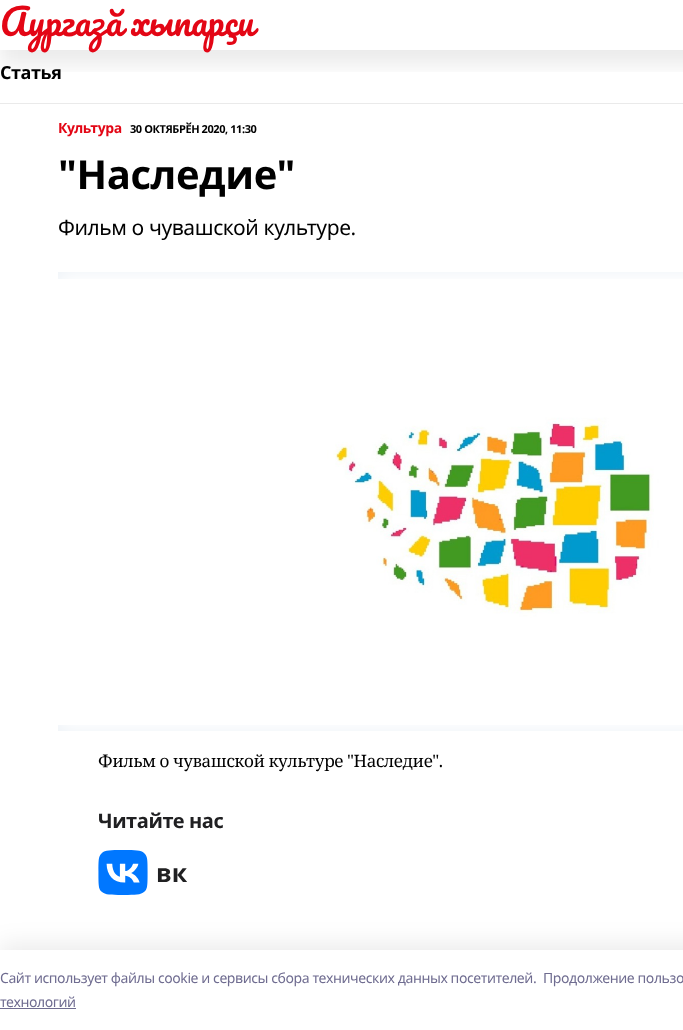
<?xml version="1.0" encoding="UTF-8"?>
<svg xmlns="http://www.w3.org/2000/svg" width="683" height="1030">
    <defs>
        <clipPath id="clip1"><rect x="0" y="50" width="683" height="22"/></clipPath>
        <filter id="blur1" x="-50%" y="-200%" width="200%" height="500%"><feGaussianBlur stdDeviation="10"/></filter>
        <filter id="blur2" x="-50%" y="-200%" width="200%" height="500%"><feGaussianBlur stdDeviation="11.5"/></filter>
    </defs>
    <rect width="100%" height="100%" fill="#FFFFFF"/>
    <g clip-path="url(#clip1)">
        <rect x="0" y="15" width="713" height="50" fill="#000000" fill-opacity="0.08" filter="url(#blur1)"/>
    </g>
    <text x="0" y="36" word-spacing="-1" font-family="Pacifico" font-size="36" letter-spacing="-0.42" fill="#E30615">Аургазă хыпарçи</text>
    <rect x="0" y="103" width="683" height="1" fill="#EAEAEA"/>
    <text x="0" y="79" font-family="Noto Sans" font-size="18" font-weight="700" letter-spacing="-0.42" fill="#000000">Статья</text>
    <text x="58" y="133" font-family="Noto Sans" font-size="14" font-weight="700" letter-spacing="-0.42" fill="#E30615">Культура</text>
    <text x="130" y="133" font-family="Noto Sans" font-size="11" font-weight="700" letter-spacing="-0.42" fill="#000000">30 ОКТЯБРӖН 2020, 11:30</text>
    <text x="58" y="189" font-family="Noto Sans" font-size="40" font-weight="700" letter-spacing="-0.42" fill="#000000">"Наследие"</text>
    <text x="58" y="235" font-family="Noto Sans" font-size="21" letter-spacing="-0.42" fill="#000000">Фильм о чувашской культуре.</text>
    <rect x="58" y="272" width="625" height="459" fill="#EDF2F7"/>
    <image x="58" y="272" width="625" height="459" href="img_01.png"/>
    <image x="58" y="279" width="625" height="446" href="img_02.png"/>
    <text x="98" y="767" font-family="Noto Serif" font-size="17" letter-spacing="-0.42" fill="#000000">Фильм о чувашской культуре "Наследие".</text>
    <text x="98" y="828" font-family="Noto Sans" font-size="20" font-weight="700" letter-spacing="-0.42" fill="#202022">Читайте нас</text>
    <image x="98" y="850" width="89" height="45" href="img_03.png"/>
    <rect x="0" y="944" width="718" height="80" fill="#14142B" fill-opacity="0.08" filter="url(#blur2)"/>
    <rect x="0" y="950" width="683" height="80" fill="#FFFFFF"/>
    <text x="0" y="983" font-family="Noto Sans" font-size="14" letter-spacing="-0.42" fill="#6F6C90">Cайт использует файлы cookie и сервисы сбора технических данных посетителей.</text>
    <text x="543" y="983" font-family="Noto Sans" font-size="14" letter-spacing="-0.42" fill="#6F6C90">Продолжение пользо</text>
    <text x="0" y="1007" font-family="Noto Sans" font-size="14" letter-spacing="-0.42" fill="#6F6C90">технологий</text>
    <rect x="0" y="1008" width="76" height="1" fill="#6F6C90"/>
</svg>
